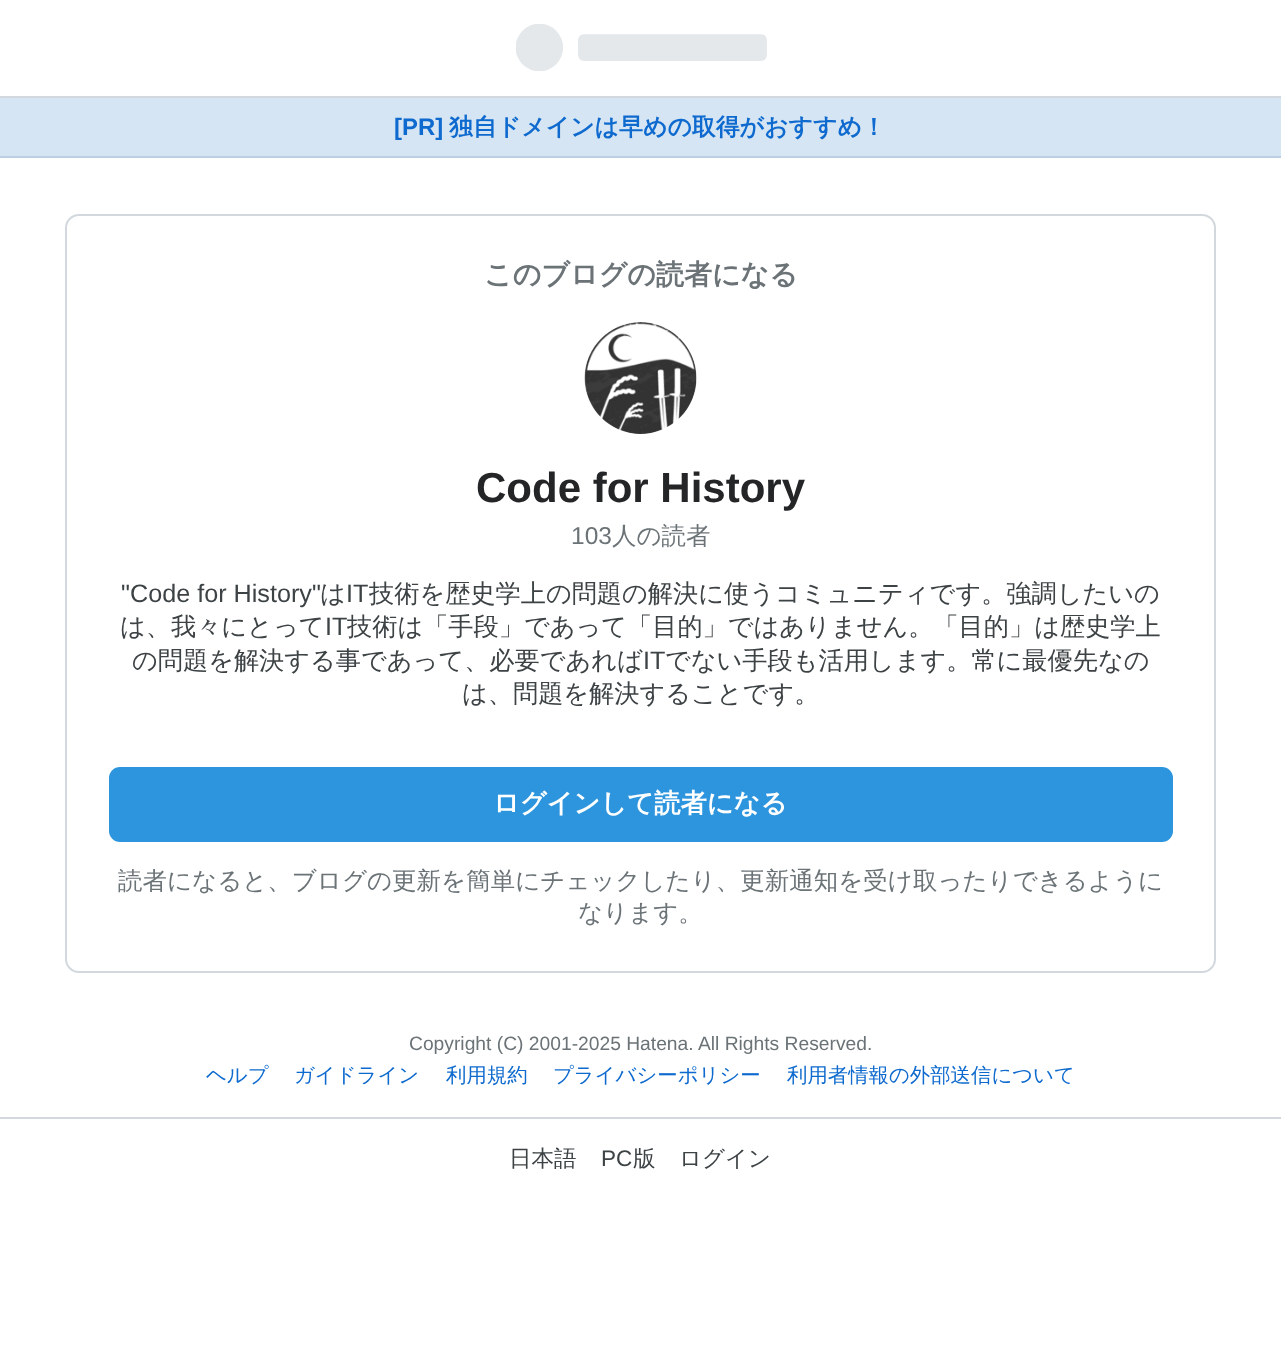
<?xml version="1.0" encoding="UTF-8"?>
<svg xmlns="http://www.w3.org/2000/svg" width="1281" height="1366">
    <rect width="100%" height="100%" fill="#FFFFFF"/>
    <rect x="0" y="96" width="1281" height="2" fill="#D2D8DD"/>
    <image x="516" y="24" width="251" height="47" href="img_01.png"/>
    <rect x="0" y="98" width="1281" height="58" fill="#D6E5F3"/>
    <rect x="0" y="156" width="1281" height="2" fill="#BBCEE3"/>
    <text x="394" y="135" font-family="Liberation Sans" font-size="23.9" font-weight="700" fill="#0E6ACE">[PR]</text>
    <text x="449" y="135" font-family="WenQuanYi Zen Hei" font-size="23.9" font-weight="700" fill="#0E6ACE">独自ドメインは早めの取得がおすすめ！</text>
    <rect x="66" y="215" width="1149" height="757" rx="13" fill="none" stroke="#D2D8DD" stroke-width="2"/>
    <text x="484" y="284" font-family="WenQuanYi Zen Hei" font-size="28" font-weight="700" fill="#6B7377">このブログの読者になる</text>
    <image x="584" y="322" width="113" height="112" href="img_02.png"/>
    <text x="476" y="502" font-family="Liberation Sans" font-size="42" font-weight="700" fill="#242527">Code for History</text>
    <text x="571" y="544" font-family="Liberation Sans" font-size="24.5" fill="#6B7377">103</text>
    <text x="612" y="544" font-family="WenQuanYi Zen Hei" font-size="24.5" font-weight="500" fill="#6B7377">人の読者</text>
    <text x="121" y="602" font-family="Liberation Sans" font-size="25.2" fill="#3D4245">"Code for History"</text>
    <text x="320" y="602" font-family="WenQuanYi Zen Hei" font-size="25.2" font-weight="500" fill="#3D4245">は</text>
    <text x="346" y="602" font-family="Liberation Sans" font-size="25.2" fill="#3D4245">IT</text>
    <text x="369" y="602" font-family="WenQuanYi Zen Hei" font-size="25.2" font-weight="500" fill="#3D4245">技術を歴史学上の問題の解決に使うコミュニティです。強調したいの</text>
    <text x="120" y="635" font-family="WenQuanYi Zen Hei" font-size="25.2" font-weight="500" fill="#3D4245">は、我々にとって</text>
    <text x="325" y="635" font-family="Liberation Sans" font-size="25.2" fill="#3D4245">IT</text>
    <text x="347" y="635" font-family="WenQuanYi Zen Hei" font-size="25.2" font-weight="500" fill="#3D4245">技術は「手段」であって「目的」ではありません。「目的」は歴史学上</text>
    <text x="132" y="669" font-family="WenQuanYi Zen Hei" font-size="25.2" font-weight="500" fill="#3D4245">の問題を解決する事であって、必要であれば</text>
    <text x="643" y="669" font-family="Liberation Sans" font-size="25.2" fill="#3D4245">IT</text>
    <text x="665" y="669" font-family="WenQuanYi Zen Hei" font-size="25.2" font-weight="500" fill="#3D4245">でない手段も活用します。常に最優先なの</text>
    <text x="462" y="702" font-family="WenQuanYi Zen Hei" font-size="25.2" font-weight="500" fill="#3D4245">は、問題を解決することです。</text>
    <rect x="109" y="767" width="1064" height="75" rx="11" fill="#2D95DE"/>
    <text x="493" y="812" font-family="WenQuanYi Zen Hei" font-size="26.25" font-weight="700" fill="#FFFFFF">ログインして読者になる</text>
    <text x="118" y="889" font-family="WenQuanYi Zen Hei" font-size="24.5" font-weight="500" fill="#6B7377">読者になると、ブログの更新を簡単にチェックしたり、更新通知を受け取ったりできるように</text>
    <text x="578" y="921" font-family="WenQuanYi Zen Hei" font-size="24.5" font-weight="500" fill="#6B7377">なります。</text>
    <text x="409" y="1050" font-family="Liberation Sans" font-size="19.25" fill="#6B7377">Copyright (C) 2001-2025 Hatena. All Rights Reserved.</text>
    <text x="206" y="1082" font-family="WenQuanYi Zen Hei" font-size="20.4" font-weight="500" fill="#0E6ACE">ヘルプ</text>
    <text x="294" y="1082" font-family="WenQuanYi Zen Hei" font-size="20.4" font-weight="500" fill="#0E6ACE">ガイドライン</text>
    <text x="446" y="1082" font-family="WenQuanYi Zen Hei" font-size="20.4" font-weight="500" fill="#0E6ACE">利用規約</text>
    <text x="553" y="1082" font-family="WenQuanYi Zen Hei" font-size="20.4" font-weight="500" fill="#0E6ACE">プライバシーポリシー</text>
    <text x="787" y="1082" font-family="WenQuanYi Zen Hei" font-size="20.4" font-weight="500" fill="#0E6ACE">利用者情報の外部送信について</text>
    <rect x="0" y="1117" width="1281" height="2" fill="#D2D8DD"/>
    <text x="509" y="1166" font-family="WenQuanYi Zen Hei" font-size="22.5" font-weight="500" fill="#3D4245">日本語</text>
    <text x="601" y="1166" font-family="Liberation Sans" font-size="22.5" fill="#3D4245">PC</text>
    <text x="633" y="1166" font-family="WenQuanYi Zen Hei" font-size="22.5" font-weight="500" fill="#3D4245">版</text>
    <text x="679" y="1166" font-family="WenQuanYi Zen Hei" font-size="22.5" font-weight="500" fill="#3D4245">ログイン</text>
</svg>
